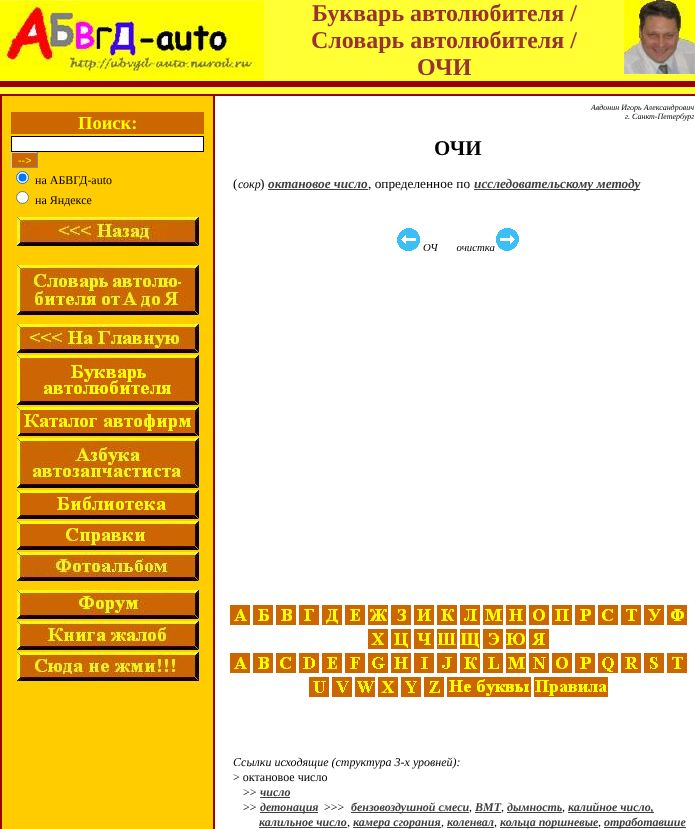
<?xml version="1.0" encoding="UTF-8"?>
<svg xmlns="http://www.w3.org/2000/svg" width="695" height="829">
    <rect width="100%" height="100%" fill="#FFFF33"/>
    <image x="0" y="1" width="264" height="79" href="img_01.png"/>
    <text x="312" y="21" font-family="Liberation Serif" font-size="24" font-weight="700" fill="#993333">Букварь автолюбителя /</text>
    <text x="311" y="48" font-family="Liberation Serif" font-size="24" font-weight="700" fill="#993333">Словарь автолюбителя /</text>
    <text x="417" y="75" font-family="Liberation Serif" font-size="24" font-weight="700" fill="#993333">ОЧИ</text>
    <image x="624" y="0" width="71" height="74" href="img_02.png"/>
    <rect x="0" y="81" width="695" height="6" fill="#990000"/>
    <rect x="0" y="94" width="695" height="735" fill="#990000"/>
    <rect x="2" y="96" width="211" height="733" fill="#FFCC00"/>
    <rect x="11" y="112" width="193" height="22" fill="#CC6600"/>
    <text x="78" y="129" font-family="Liberation Serif" font-size="18.5" font-weight="700" fill="#FFFF00">Поиск:</text>
    <rect x="11.5" y="136.5" width="192" height="15" fill="#FFFFFF" stroke="#000000"/>
    <rect x="12" y="153" width="25" height="14" fill="#CC6600"/>
    <rect x="11" y="152" width="27" height="1" fill="#CCCCCC"/>
    <rect x="37" y="152" width="1" height="16" fill="#888888"/>
    <rect x="11" y="167" width="27" height="1" fill="#888888"/>
    <rect x="11" y="152" width="1" height="16" fill="#CCCCCC"/>
    <text x="18" y="164" font-family="Liberation Sans" font-size="10.75" fill="#FFFF00">--&gt;</text>
    <circle cx="22.5" cy="177.5" r="6" fill="#FFFFFF" stroke="#0075FF"/>
    <circle cx="22.5" cy="177.5" r="4" fill="#0075FF"/>
    <text x="35" y="184" font-family="Liberation Serif" font-size="12" fill="#000000">на АБВГД-auto</text>
    <circle cx="22.5" cy="197.5" r="6" fill="#FFFFFF" stroke="#767676"/>
    <text x="35" y="204" font-family="Liberation Serif" font-size="12" fill="#000000">на Яндексе</text>
    <image x="17" y="217" width="182" height="29" href="img_03.png"/>
    <image x="17" y="265" width="182" height="50" href="img_04.png"/>
    <image x="17" y="324" width="182" height="29" href="img_05.png"/>
    <image x="17" y="355" width="182" height="50" href="img_06.png"/>
    <image x="17" y="407" width="182" height="29" href="img_07.png"/>
    <image x="17" y="438" width="182" height="50" href="img_08.png"/>
    <image x="17" y="490" width="182" height="29" href="img_09.png"/>
    <image x="17" y="521" width="182" height="29" href="img_10.png"/>
    <image x="17" y="552" width="182" height="29" href="img_11.png"/>
    <image x="17" y="590" width="182" height="29" href="img_12.png"/>
    <image x="17" y="621" width="182" height="29" href="img_13.png"/>
    <image x="17" y="652" width="182" height="29" href="img_14.png"/>
    <rect x="215" y="96" width="480" height="733" fill="#FFFFFF"/>
    <text x="591" y="110" font-family="Liberation Serif" font-size="8" font-style="italic" fill="#000000">Авдонин Игорь Александрович</text>
    <text x="625" y="119" font-family="Liberation Serif" font-size="8" font-style="italic" fill="#000000">г. Санкт-Петербург</text>
    <text x="434" y="155" font-family="Liberation Serif" font-size="21" font-weight="700" fill="#000000">ОЧИ</text>
    <text x="233" y="188" font-family="Liberation Serif" font-size="13.3" fill="#000000">(</text>
    <text x="238" y="188" font-family="Liberation Serif" font-size="12" font-style="italic" fill="#000000">сокр</text>
    <text x="260" y="188" font-family="Liberation Serif" font-size="13.3" fill="#000000">)</text>
    <text x="268" y="188" font-family="Liberation Serif" font-size="13.3" font-weight="700" font-style="italic" fill="#404040">октановое число</text>
    <rect x="268" y="189" width="100" height="1" fill="#404040"/>
    <text x="368" y="188" font-family="Liberation Serif" font-size="13.3" fill="#000000">, определенное по</text>
    <rect x="474" y="189" width="166" height="1" fill="#404040"/>
    <text x="474" y="188" font-family="Liberation Serif" font-size="13.3" font-weight="700" font-style="italic" fill="#404040">исследовательскому методу</text>
    <image x="397" y="228" width="23" height="23" href="img_15.png"/>
    <text x="423" y="251" font-family="Liberation Serif" font-size="10.75" font-style="italic" fill="#000000" xml:space="preserve">ОЧ       очистка</text>
    <image x="496" y="228" width="23" height="23" href="img_16.png"/>
    <image x="230" y="605" width="20" height="20" href="img_17.png"/>
    <image x="253" y="605" width="20" height="20" href="img_18.png"/>
    <image x="276" y="605" width="20" height="20" href="img_19.png"/>
    <image x="299" y="605" width="20" height="20" href="img_20.png"/>
    <image x="322" y="605" width="20" height="20" href="img_21.png"/>
    <image x="345" y="605" width="20" height="20" href="img_22.png"/>
    <image x="368" y="605" width="20" height="20" href="img_23.png"/>
    <image x="391" y="605" width="20" height="20" href="img_24.png"/>
    <image x="414" y="605" width="20" height="20" href="img_25.png"/>
    <image x="437" y="605" width="20" height="20" href="img_26.png"/>
    <image x="460" y="605" width="20" height="20" href="img_27.png"/>
    <image x="483" y="605" width="20" height="20" href="img_28.png"/>
    <image x="506" y="605" width="20" height="20" href="img_29.png"/>
    <image x="529" y="605" width="20" height="20" href="img_30.png"/>
    <image x="552" y="605" width="20" height="20" href="img_31.png"/>
    <image x="575" y="605" width="20" height="20" href="img_32.png"/>
    <image x="598" y="605" width="20" height="20" href="img_33.png"/>
    <image x="621" y="605" width="20" height="20" href="img_34.png"/>
    <image x="644" y="605" width="20" height="20" href="img_35.png"/>
    <image x="667" y="605" width="20" height="20" href="img_36.png"/>
    <image x="368" y="629" width="20" height="20" href="img_37.png"/>
    <image x="391" y="629" width="20" height="20" href="img_38.png"/>
    <image x="414" y="629" width="20" height="20" href="img_39.png"/>
    <image x="437" y="629" width="20" height="20" href="img_40.png"/>
    <image x="460" y="629" width="20" height="20" href="img_41.png"/>
    <image x="483" y="629" width="20" height="20" href="img_42.png"/>
    <image x="506" y="629" width="20" height="20" href="img_43.png"/>
    <image x="529" y="629" width="20" height="20" href="img_44.png"/>
    <image x="230" y="653" width="20" height="20" href="img_17.png"/>
    <image x="253" y="653" width="20" height="20" href="img_19.png"/>
    <image x="276" y="653" width="20" height="20" href="img_33.png"/>
    <image x="299" y="653" width="20" height="20" href="img_45.png"/>
    <image x="322" y="653" width="20" height="20" href="img_22.png"/>
    <image x="345" y="653" width="20" height="20" href="img_46.png"/>
    <image x="368" y="653" width="20" height="20" href="img_47.png"/>
    <image x="391" y="653" width="20" height="20" href="img_29.png"/>
    <image x="414" y="653" width="20" height="20" href="img_48.png"/>
    <image x="437" y="653" width="20" height="20" href="img_49.png"/>
    <image x="460" y="653" width="20" height="20" href="img_26.png"/>
    <image x="483" y="653" width="20" height="20" href="img_50.png"/>
    <image x="506" y="653" width="20" height="20" href="img_28.png"/>
    <image x="529" y="653" width="20" height="20" href="img_51.png"/>
    <image x="552" y="653" width="20" height="20" href="img_30.png"/>
    <image x="575" y="653" width="20" height="20" href="img_32.png"/>
    <image x="598" y="653" width="20" height="20" href="img_52.png"/>
    <image x="621" y="653" width="20" height="20" href="img_53.png"/>
    <image x="644" y="653" width="20" height="20" href="img_54.png"/>
    <image x="667" y="653" width="20" height="20" href="img_34.png"/>
    <image x="309" y="677" width="20" height="20" href="img_55.png"/>
    <image x="332" y="677" width="20" height="20" href="img_56.png"/>
    <image x="355" y="677" width="20" height="20" href="img_57.png"/>
    <image x="378" y="677" width="20" height="20" href="img_37.png"/>
    <image x="401" y="677" width="20" height="20" href="img_58.png"/>
    <image x="424" y="677" width="20" height="20" href="img_59.png"/>
    <image x="447" y="677" width="84" height="20" href="img_60.png"/>
    <image x="534" y="677" width="74" height="20" href="img_61.png"/>
    <text x="233" y="766" font-family="Liberation Serif" font-size="12" font-style="italic" fill="#000000">Ссылки исходящие (структура 3-х уровней):</text>
    <text x="233" y="781" font-family="Liberation Serif" font-size="12" fill="#000000">&gt; октановое число</text>
    <text x="243" y="796" font-family="Liberation Serif" font-size="12" fill="#000000">&gt;&gt;</text>
    <text x="260" y="796" font-family="Liberation Serif" font-size="12" font-weight="700" font-style="italic" fill="#404040">число</text>
    <rect x="260" y="797" width="30" height="1" fill="#404040"/>
    <text x="243" y="811" font-family="Liberation Serif" font-size="12" fill="#000000">&gt;&gt;</text>
    <rect x="260" y="812" width="58" height="1" fill="#404040"/>
    <text x="260" y="811" font-family="Liberation Serif" font-size="12" font-weight="700" font-style="italic" fill="#404040">детонация</text>
    <text x="324" y="811" font-family="Liberation Serif" font-size="12" fill="#000000">&gt;&gt;&gt;</text>
    <rect x="351" y="812" width="118" height="1" fill="#404040"/>
    <text x="351" y="811" font-family="Liberation Serif" font-size="12" font-weight="700" font-style="italic" fill="#404040">бензовоздушной смеси</text>
    <text x="475" y="811" font-family="Liberation Serif" font-size="12" font-weight="700" font-style="italic" fill="#404040">ВМТ</text>
    <rect x="475" y="812" width="26" height="1" fill="#404040"/>
    <text x="507" y="811" font-family="Liberation Serif" font-size="12" font-weight="700" font-style="italic" fill="#404040">дымность</text>
    <rect x="507" y="812" width="55" height="1" fill="#404040"/>
    <rect x="568" y="812" width="86" height="1" fill="#404040"/>
    <text x="568" y="811" font-family="Liberation Serif" font-size="12" font-weight="700" font-style="italic" fill="#404040">калийное число,</text>
    <text x="469" y="811" font-family="Liberation Serif" font-size="12" fill="#000000">,</text>
    <text x="501" y="811" font-family="Liberation Serif" font-size="12" fill="#000000">,</text>
    <text x="562" y="811" font-family="Liberation Serif" font-size="12" fill="#000000">,</text>
    <text x="259" y="826" font-family="Liberation Serif" font-size="12" font-weight="700" font-style="italic" fill="#404040">калильное число</text>
    <rect x="259" y="827" width="88" height="1" fill="#404040"/>
    <text x="347" y="826" font-family="Liberation Serif" font-size="12" fill="#000000">,</text>
    <rect x="353" y="827" width="88" height="1" fill="#404040"/>
    <text x="353" y="826" font-family="Liberation Serif" font-size="12" font-weight="700" font-style="italic" fill="#404040">камера сгорания</text>
    <text x="441" y="826" font-family="Liberation Serif" font-size="12" fill="#000000">,</text>
    <text x="447" y="826" font-family="Liberation Serif" font-size="12" font-weight="700" font-style="italic" fill="#404040">коленвал</text>
    <rect x="447" y="827" width="47" height="1" fill="#404040"/>
    <text x="494" y="826" font-family="Liberation Serif" font-size="12" fill="#000000">,</text>
    <rect x="500" y="827" width="98" height="1" fill="#404040"/>
    <text x="500" y="826" font-family="Liberation Serif" font-size="12" font-weight="700" font-style="italic" fill="#404040">кольца поршневые</text>
    <text x="598" y="826" font-family="Liberation Serif" font-size="12" fill="#000000">,</text>
    <rect x="604" y="827" width="82" height="1" fill="#404040"/>
    <text x="604" y="826" font-family="Liberation Serif" font-size="12" font-weight="700" font-style="italic" fill="#404040">отработавшие</text>
</svg>
